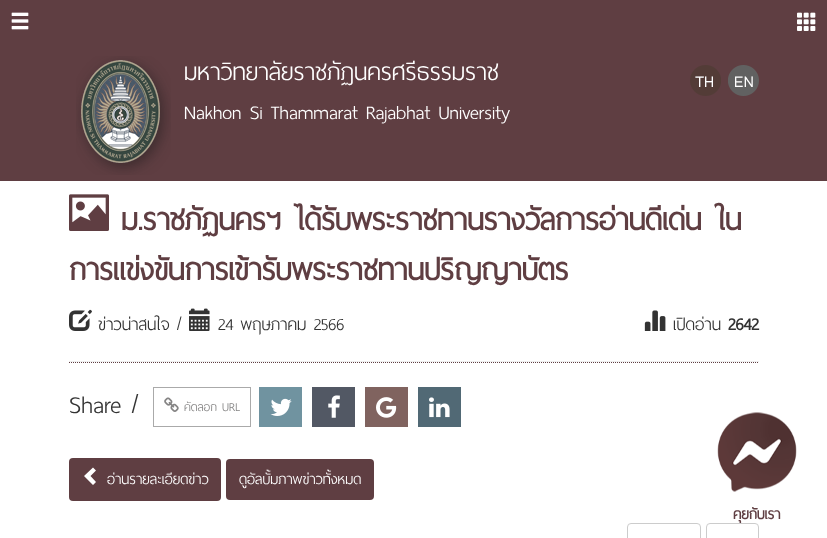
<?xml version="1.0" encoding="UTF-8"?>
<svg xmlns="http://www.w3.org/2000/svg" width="827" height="538">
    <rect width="100%" height="100%" fill="#5F3E42"/>
    <image x="11" y="12" width="18" height="18" href="img_01.png"/>
    <image x="797" y="12" width="19" height="19" href="img_02.png"/>
    <image x="76" y="56" width="95" height="119" href="img_03.png"/>
    <text x="184" y="80" font-family="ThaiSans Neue" font-size="32" font-weight="300" fill="#FFFFFF">มหาวิทยาลัยราชภัฏนครศรีธรรมราช</text>
    <text x="184" y="119" font-family="ThaiSans Neue" font-size="25.6" font-weight="300" fill="#FFFFFF">Nakhon Si Thammarat Rajabhat University</text>
    <image x="690" y="65" width="31" height="31" href="img_04.png"/>
    <image x="728" y="65" width="31" height="31" href="img_05.png"/>
    <rect x="0" y="181" width="827" height="357" fill="#FFFFFF"/>
    <image x="69" y="194" width="40" height="37" href="img_06.png"/>
    <text x="121" y="230" font-family="ThaiSans Neue" font-size="40" font-weight="700" fill="#5F3E42">ม.ราชภัฏนครฯ ได้รับพระราชทานรางวัลการอ่านดีเด่น ใน</text>
    <text x="69" y="280" font-family="ThaiSans Neue" font-size="40" font-weight="700" fill="#5F3E42">การแข่งขันการเข้ารับพระราชทานปริญญาบัตร</text>
    <image x="69" y="309" width="23" height="22" href="img_07.png"/>
    <text x="98" y="330" font-family="ThaiSans Neue" font-size="22.5" font-weight="300" fill="#333333">ข่าวน่าสนใจ /</text>
    <image x="189" y="308" width="21" height="23" href="img_08.png"/>
    <text x="218" y="330" font-family="ThaiSans Neue" font-size="22.5" font-weight="300" fill="#333333">24 พฤษภาคม 2566</text>
    <image x="644" y="310" width="22" height="21" href="img_09.png"/>
    <text x="673" y="330" font-family="ThaiSans Neue" font-size="22.5" font-weight="300" fill="#333333">เปิดอ่าน</text>
    <text x="728" y="330" font-family="ThaiSans Neue" font-size="22.5" font-weight="700" fill="#333333">2642</text>
    <rect x="69" y="361" width="690" height="1" fill="#EEEEEE"/>
    <path d="M 69 362.5 H 759" fill="none" stroke="#5F3E42" stroke-dasharray="1 1"/>
    <text x="69" y="413" font-family="ThaiSans Neue" font-size="32" font-weight="300" fill="#333333">Share /</text>
    <rect x="153.5" y="387.5" width="97" height="39" fill="none" stroke="#AAAAAA"/>
    <image x="164" y="397" width="15" height="15" href="img_10.png"/>
    <text x="184" y="411" font-family="ThaiSans Neue" font-size="16" font-weight="300" fill="#858484">คัดลอก URL</text>
    <rect x="259" y="387" width="43" height="40" fill="#7093A0"/>
    <image x="270" y="398" width="22" height="18" href="img_11.png"/>
    <rect x="312" y="387" width="43" height="40" fill="#525864"/>
    <image x="328" y="395" width="12" height="23" href="img_12.png"/>
    <rect x="365" y="387" width="43" height="40" fill="#80635F"/>
    <image x="376" y="397" width="21" height="21" href="img_13.png"/>
    <rect x="418" y="387" width="43" height="40" fill="#516975"/>
    <image x="429" y="397" width="21" height="21" href="img_14.png"/>
    <rect x="69" y="458" width="152" height="43" rx="4" fill="#5F3E42"/>
    <path d="M 96 470.5 L 90.5 476 L 96 482 L 93 485 L 84 476 L 93 467.5 Z" fill="#FFFFFF"/>
    <text x="107" y="484" font-family="ThaiSans Neue" font-size="19.25" font-weight="300" fill="#FFFFFF">อ่านรายละเอียดข่าว</text>
    <rect x="226" y="459" width="148" height="41" rx="4" fill="#5F3E42"/>
    <text x="239" y="484" font-family="ThaiSans Neue" font-size="19.25" font-weight="300" fill="#FFFFFF">ดูอัลบั้มภาพข่าวทั้งหมด</text>
    <rect x="627.5" y="523.5" width="73" height="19" rx="3.5" fill="none" stroke="#CCCCCC"/>
    <rect x="706.5" y="523.5" width="52" height="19" rx="3.5" fill="none" stroke="#CCCCCC"/>
    <image x="717" y="412" width="80" height="80" href="img_15.png"/>
    <text x="733" y="519" font-family="ThaiSans Neue" font-size="19.25" font-weight="700" fill="#5F3E42">คุยกับเรา</text>
</svg>
